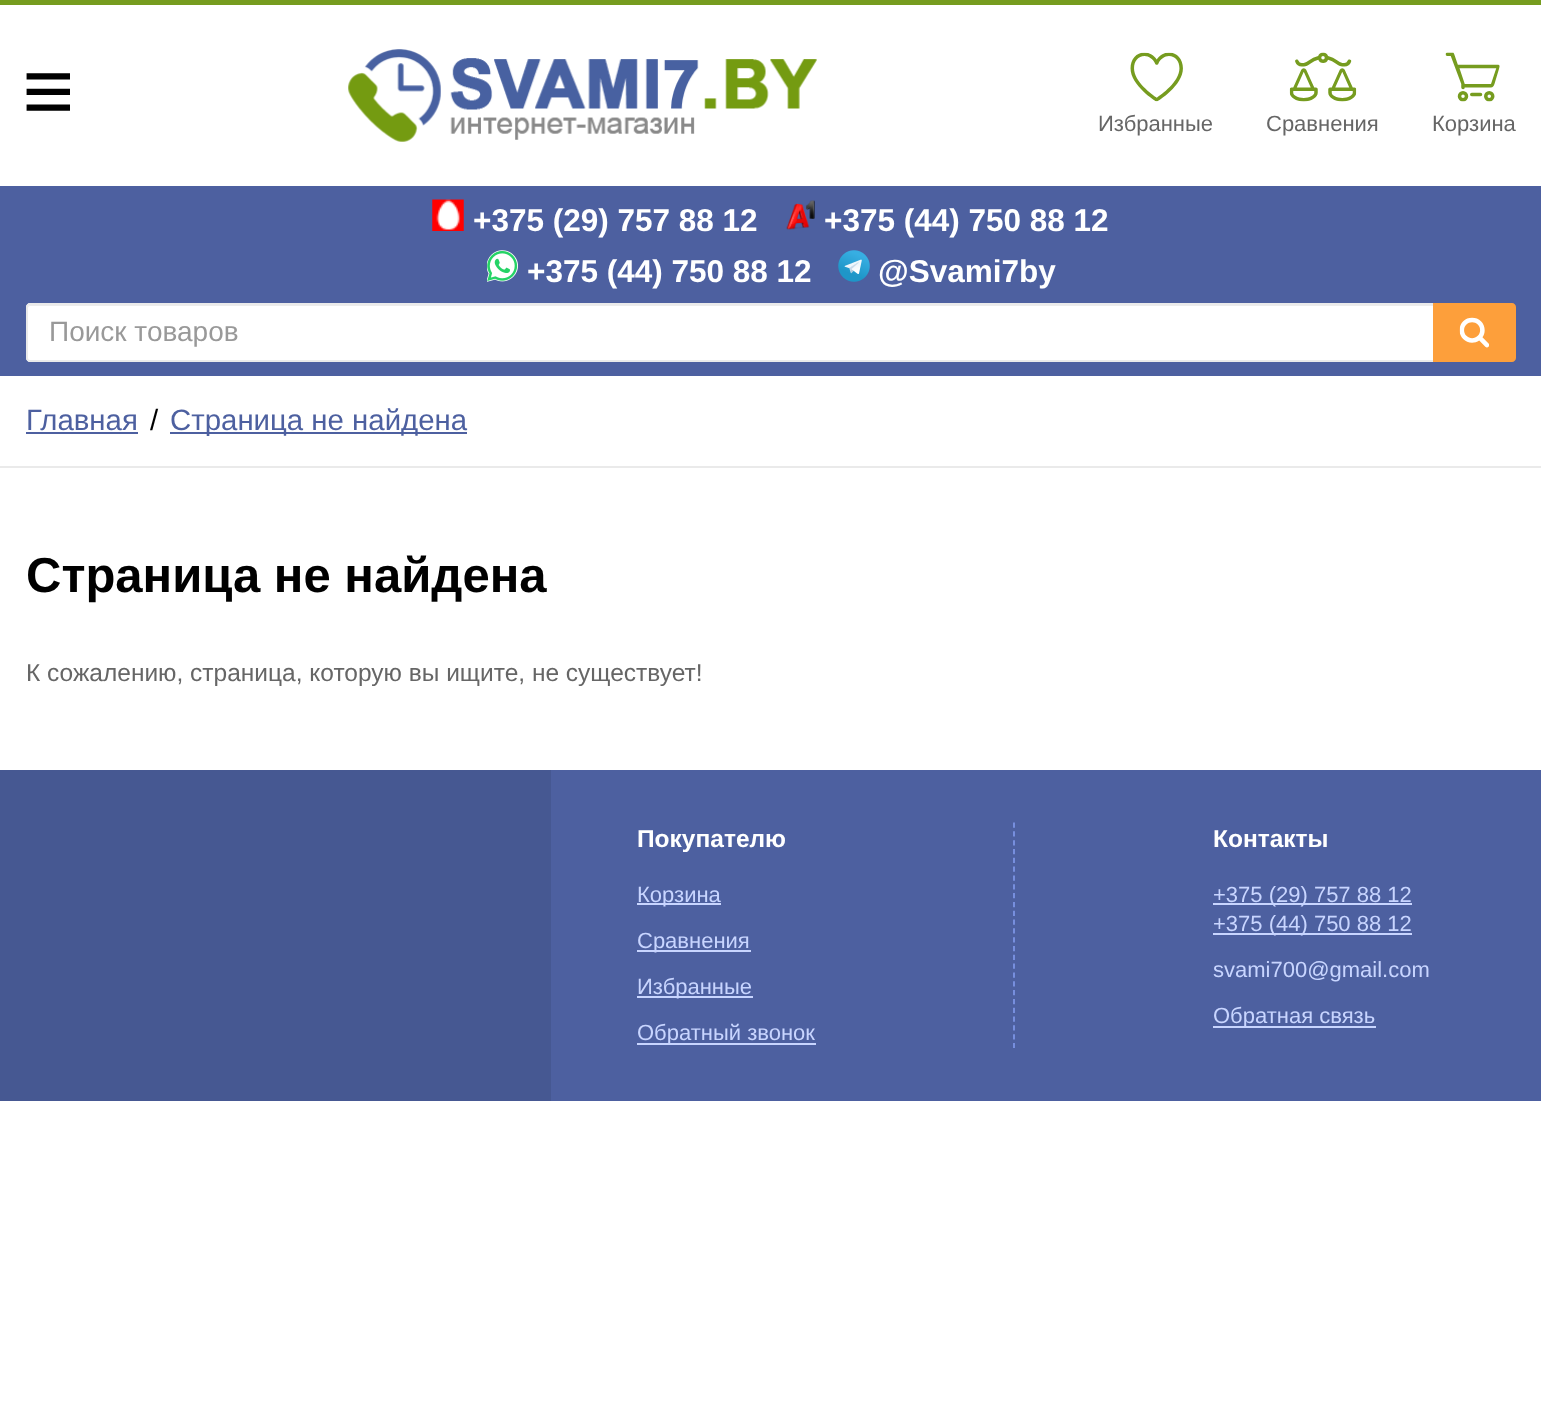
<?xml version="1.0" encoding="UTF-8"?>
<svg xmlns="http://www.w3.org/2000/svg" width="1541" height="1422">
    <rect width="100%" height="100%" fill="#FFFFFF"/>
    <rect x="0" y="0" width="1541" height="5" fill="#769C1F"/>
    <image x="26" y="73" width="44" height="38" href="img_01.png"/>
    <image x="348" y="49" width="469" height="93" href="img_02.png"/>
    <image x="1130" y="52" width="53" height="50" href="img_03.png"/>
    <text x="1098" y="131" font-family="Liberation Sans" font-size="22" fill="#666666">Избранные</text>
    <image x="1289" y="52" width="68" height="50" href="img_04.png"/>
    <text x="1266" y="131" font-family="Liberation Sans" font-size="22" fill="#666666">Сравнения</text>
    <image x="1445" y="52" width="55" height="50" href="img_05.png"/>
    <text x="1432" y="131" font-family="Liberation Sans" font-size="22" fill="#666666">Корзина</text>
    <rect x="0" y="186" width="1541" height="190" fill="#4D60A0"/>
    <image x="432" y="199" width="32" height="32" href="img_06.png"/>
    <text x="473" y="231" font-family="Liberation Sans" font-size="31.5" font-weight="700" fill="#FFFFFF">+375 (29) 757 88 12</text>
    <image x="786" y="200" width="29" height="30" href="img_07.png"/>
    <text x="824" y="231" font-family="Liberation Sans" font-size="31.5" font-weight="700" fill="#FFFFFF">+375 (44) 750 88 12</text>
    <image x="487" y="250" width="31" height="32" href="img_08.png"/>
    <text x="527" y="282" font-family="Liberation Sans" font-size="31.5" font-weight="700" fill="#FFFFFF">+375 (44) 750 88 12</text>
    <image x="838" y="250" width="32" height="32" href="img_09.png"/>
    <text x="878" y="282" font-family="Liberation Sans" font-size="31.5" font-weight="700" fill="#FFFFFF">@Svami7by</text>
    <path d="M 30 303 H 1435 V 362 H 30 C 28 362 26 360 26 358 V 307 C 26 305 28 303 30 303 Z" fill="#FFFFFF"/>
    <path d="M 30 306 H 1433 V 305 H 30 C 29 305 28 306 28 307 V 308 C 28 307 29 306 30 306 Z" fill="#ECECEC"/>
    <path d="M 30 304 H 1434 V 361 H 30 C 28.5 361 27 359.5 27 358 V 307 C 27 305.5 28.5 304 30 304 Z" fill="none" stroke="#EAEAEA" stroke-width="2"/>
    <text x="49" y="341" font-family="Liberation Sans" font-size="28" fill="#999999">Поиск товаров</text>
    <path d="M 1433 303 H 1512 C 1514 303 1516 305 1516 307 V 358 C 1516 360 1514 362 1512 362 H 1433 Z" fill="#FD9F3B"/>
    <image x="1459" y="317" width="30" height="31" href="img_10.png"/>
    <rect x="0" y="466" width="1541" height="2" fill="#EAEAEA"/>
    <text x="26" y="430" font-family="Liberation Sans" font-size="29.4" fill="#4D60A0">Главная</text>
    <rect x="26" y="432" width="112" height="2" fill="#4D60A0"/>
    <text x="150" y="430" font-family="Liberation Sans" font-size="29.4" fill="#000000">/</text>
    <rect x="170" y="432" width="297" height="2" fill="#4D60A0"/>
    <text x="170" y="430" font-family="Liberation Sans" font-size="29.4" fill="#4D60A0">Страница не найдена</text>
    <text x="26" y="592" font-family="Liberation Sans" font-size="49" font-weight="700" fill="#000000">Страница не найдена</text>
    <text x="26" y="681" font-family="Liberation Sans" font-size="24.5" fill="#666666">К сожалению, страница, которую вы ищите, не существует!</text>
    <rect x="551" y="770" width="990" height="331" fill="#4D60A0"/>
    <rect x="0" y="770" width="551" height="331" fill="#465892"/>
    <text x="637" y="847" font-family="Liberation Sans" font-size="24.5" font-weight="700" fill="#FFFFFF">Покупателю</text>
    <rect x="637" y="903" width="84" height="2" fill="#C8D5FF"/>
    <text x="637" y="902" font-family="Liberation Sans" font-size="22" fill="#C8D5FF">Корзина</text>
    <rect x="637" y="950" width="114" height="2" fill="#C8D5FF"/>
    <text x="637" y="948" font-family="Liberation Sans" font-size="22" fill="#C8D5FF">Сравнения</text>
    <rect x="637" y="996" width="116" height="2" fill="#C8D5FF"/>
    <text x="637" y="994" font-family="Liberation Sans" font-size="22" fill="#C8D5FF">Избранные</text>
    <rect x="637" y="1043" width="179" height="2" fill="#C8D5FF"/>
    <text x="637" y="1040" font-family="Liberation Sans" font-size="22" fill="#C8D5FF">Обратный звонок</text>
    <path d="M 1014 822.5 V 1048" fill="none" stroke="#7C94E5" stroke-width="1.8" stroke-dasharray="5.25 3.57"/>
    <text x="1213" y="847" font-family="Liberation Sans" font-size="24.5" font-weight="700" fill="#FFFFFF">Контакты</text>
    <rect x="1213" y="903" width="199" height="2" fill="#C8D5FF"/>
    <text x="1213" y="902" font-family="Liberation Sans" font-size="22" fill="#C8D5FF">+375 (29) 757 88 12</text>
    <rect x="1213" y="933" width="199" height="2" fill="#C8D5FF"/>
    <text x="1213" y="931" font-family="Liberation Sans" font-size="22" fill="#C8D5FF">+375 (44) 750 88 12</text>
    <text x="1213" y="977" font-family="Liberation Sans" font-size="22" fill="#C8D5FF">svami700@gmail.com</text>
    <rect x="1213" y="1026" width="163" height="2" fill="#C8D5FF"/>
    <text x="1213" y="1023" font-family="Liberation Sans" font-size="22" fill="#C8D5FF">Обратная связь</text>
</svg>
